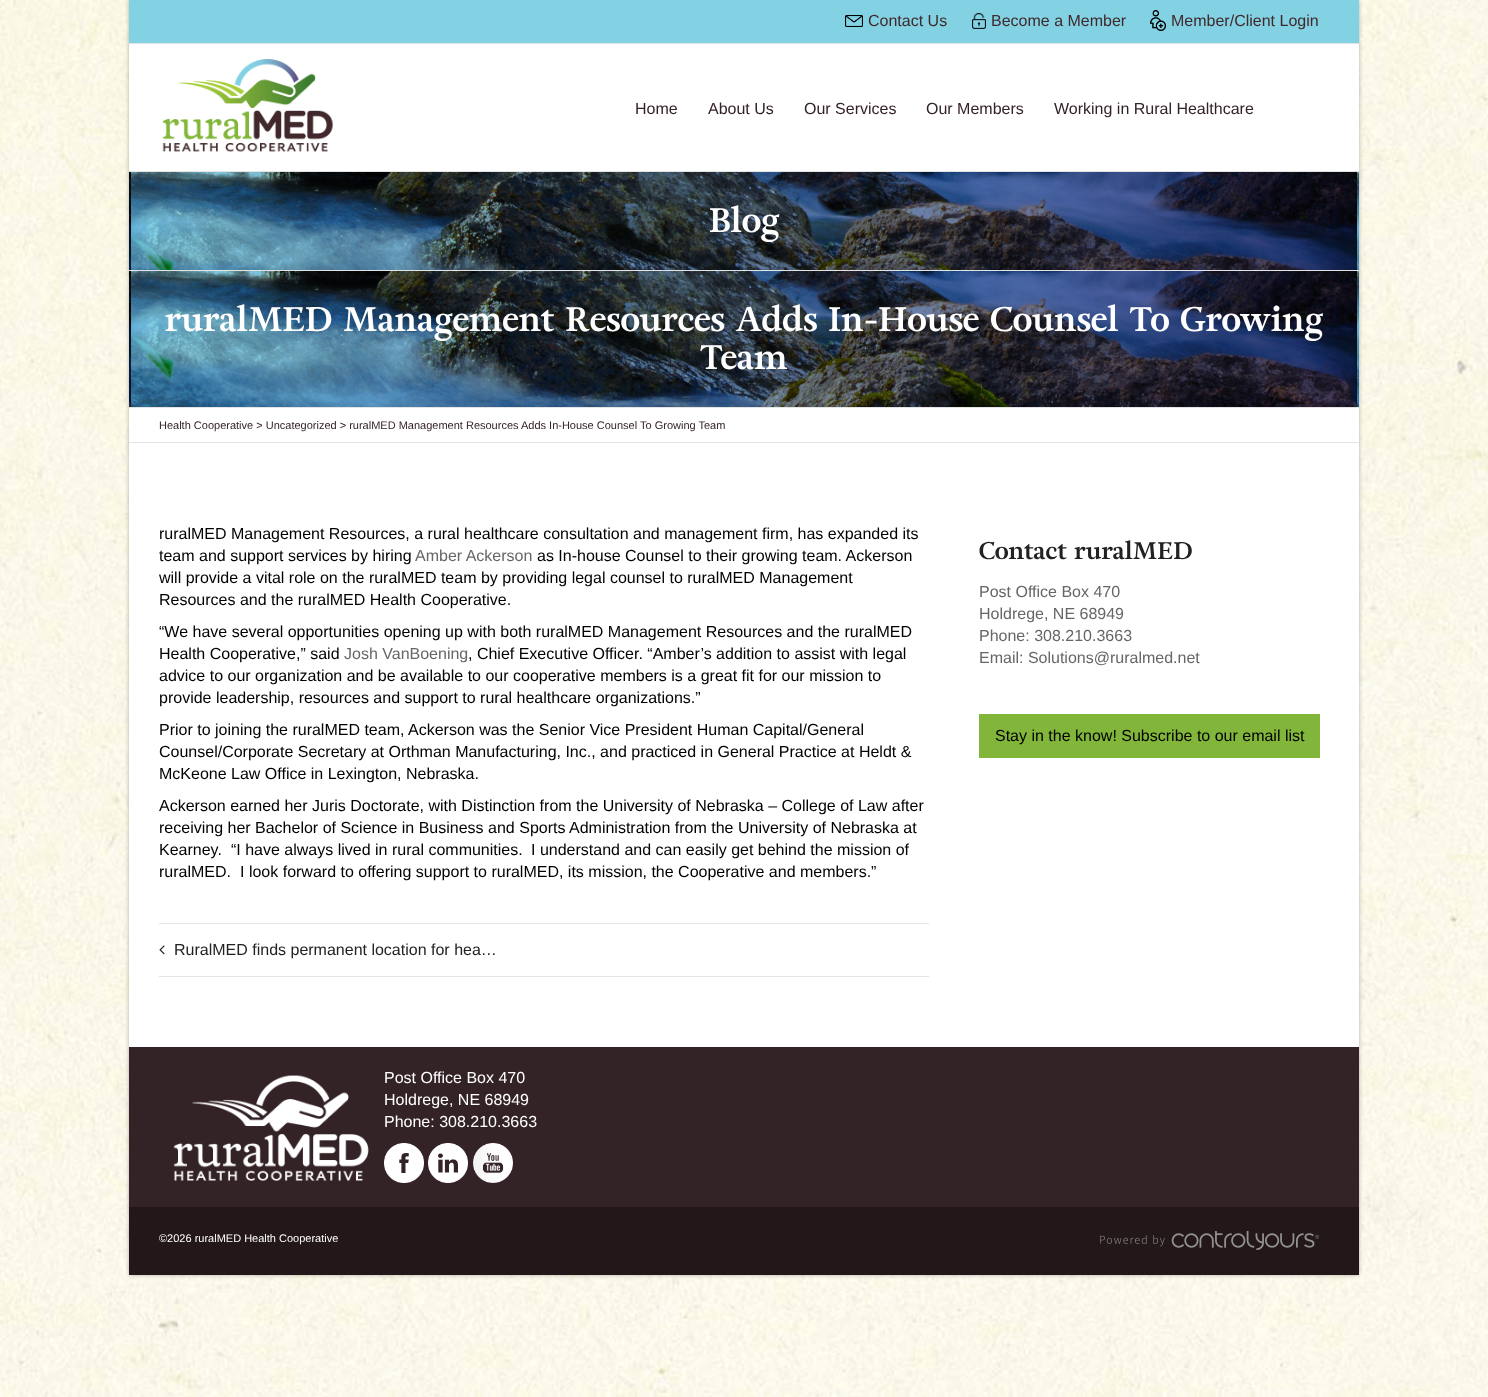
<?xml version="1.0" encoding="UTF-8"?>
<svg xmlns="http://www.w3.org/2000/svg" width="1488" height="1397">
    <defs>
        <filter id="blur1" x="-50%" y="-200%" width="200%" height="500%"><feGaussianBlur stdDeviation="2"/></filter>
    </defs>
    <rect width="100%" height="100%" fill="#FFFFFF"/>
    <image x="0" y="0" width="1488" height="1397" href="img_01.png"/>
    <rect x="129" y="0" width="1230" height="1275" fill="#000000" fill-opacity="0.3" filter="url(#blur1)"/>
    <rect x="129" y="44" width="1230" height="1003" fill="#FFFFFF"/>
    <rect x="129" y="0" width="1230" height="43" fill="#82D2E4"/>
    <rect x="129" y="43" width="1230" height="1" fill="#E4E4E4"/>
    <image x="845" y="15" width="18" height="12" href="img_02.png"/>
    <text x="868" y="26" font-family="Liberation Sans" font-size="16" fill="#40282B">Contact Us</text>
    <image x="972" y="13" width="14" height="16" href="img_03.png"/>
    <text x="991" y="26" font-family="Liberation Sans" font-size="16" fill="#40282B">Become a Member</text>
    <image x="1150" y="10" width="16" height="21" href="img_04.png"/>
    <text x="1171" y="26" font-family="Liberation Sans" font-size="16" fill="#40282B">Member/Client Login</text>
    <rect x="129" y="171" width="1230" height="1" fill="#E4E4E4"/>
    <image x="162" y="59" width="171" height="93" href="img_05.png"/>
    <text x="635" y="114" font-family="Liberation Sans" font-size="16" fill="#342326">Home</text>
    <text x="708" y="114" font-family="Liberation Sans" font-size="16" fill="#342326">About Us</text>
    <text x="804" y="114" font-family="Liberation Sans" font-size="16" fill="#342326">Our Services</text>
    <text x="926" y="114" font-family="Liberation Sans" font-size="16" fill="#342326">Our Members</text>
    <text x="1054" y="114" font-family="Liberation Sans" font-size="16" fill="#342326">Working in Rural Healthcare</text>
    <image x="129" y="172" width="1230" height="98" href="img_07.png"/>
    <image x="251" y="172" width="947" height="10" href="img_06.png"/>
    <rect x="129" y="270" width="1230" height="1" fill="#E4E4E4"/>
    <text x="709" y="232" font-family="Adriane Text" font-size="34" font-weight="700" fill="#FFFFFF">Blog</text>
    <image x="129" y="271" width="1230" height="136" href="img_08.png"/>
    <rect x="129" y="407" width="1230" height="1" fill="#E4E4E4"/>
    <text x="165" y="331" font-family="Adriane Text" font-size="34" font-weight="700" fill="#FFFFFF">ruralMED Management Resources Adds In-House Counsel To Growing</text>
    <text x="700" y="369" font-family="Adriane Text" font-size="34" font-weight="700" fill="#FFFFFF">Team</text>
    <rect x="129" y="442" width="1230" height="1" fill="#E4E4E4"/>
    <text x="159" y="429" font-family="Liberation Sans" font-size="11" fill="#342326">Health Cooperative &gt; Uncategorized &gt; ruralMED Management Resources Adds In-House Counsel To Growing Team</text>
    <text font-family="Liberation Sans" font-size="16" fill="#000000">
        <tspan x="159" y="539">ruralMED Management Resources, a rural healthcare consultation and management firm, has expanded its</tspan>
        <tspan x="159" y="561">team and support services by hiring</tspan>
    </text>
    <text x="415" y="561" font-family="Liberation Sans" font-size="16" fill="#666666">Amber Ackerson</text>
    <text x="537" y="561" font-family="Liberation Sans" font-size="16" fill="#000000">as In-house Counsel to their growing team. Ackerson</text>
    <text font-family="Liberation Sans" font-size="16" fill="#000000">
        <tspan x="159" y="583">will provide a vital role on the ruralMED team by providing legal counsel to ruralMED Management</tspan>
        <tspan x="159" y="605">Resources and the ruralMED Health Cooperative.</tspan>
    </text>
    <text font-family="Liberation Sans" font-size="16" fill="#000000">
        <tspan x="159" y="637">“We have several opportunities opening up with both ruralMED Management Resources and the ruralMED</tspan>
        <tspan x="159" y="659">Health Cooperative,” said</tspan>
    </text>
    <text x="344" y="659" font-family="Liberation Sans" font-size="16" fill="#666666">Josh VanBoening</text>
    <text x="468" y="659" font-family="Liberation Sans" font-size="16" fill="#000000">, Chief Executive Officer. “Amber’s addition to assist with legal</text>
    <text font-family="Liberation Sans" font-size="16" fill="#000000">
        <tspan x="159" y="681">advice to our organization and be available to our cooperative members is a great fit for our mission to</tspan>
        <tspan x="159" y="703">provide leadership, resources and support to rural healthcare organizations.”</tspan>
    </text>
    <text font-family="Liberation Sans" font-size="16" fill="#000000">
        <tspan x="159" y="735">Prior to joining the ruralMED team, Ackerson was the Senior Vice President Human Capital/General</tspan>
        <tspan x="159" y="757">Counsel/Corporate Secretary at Orthman Manufacturing, Inc., and practiced in General Practice at Heldt &amp;</tspan>
        <tspan x="159" y="779">McKeone Law Office in Lexington, Nebraska.</tspan>
    </text>
    <text font-family="Liberation Sans" font-size="16" fill="#000000">
        <tspan x="159" y="811">Ackerson earned her Juris Doctorate, with Distinction from the University of Nebraska – College of Law after</tspan>
        <tspan x="159" y="833">receiving her Bachelor of Science in Business and Sports Administration from the University of Nebraska at</tspan>
        <tspan x="159" y="855">Kearney.</tspan>
    </text>
    <text x="231" y="855" font-family="Liberation Sans" font-size="16" fill="#000000">“I have always lived in rural communities.</text>
    <text x="531" y="855" font-family="Liberation Sans" font-size="16" fill="#000000">I understand and can easily get behind the mission of</text>
    <text x="159" y="877" font-family="Liberation Sans" font-size="16" fill="#000000">ruralMED.</text>
    <text x="240" y="877" font-family="Liberation Sans" font-size="16" fill="#000000">I look forward to offering support to ruralMED, its mission, the Cooperative and members.”</text>
    <rect x="159" y="923" width="770" height="1" fill="#E4E4E4"/>
    <rect x="159" y="976" width="770" height="1" fill="#E4E4E4"/>
    <image x="159" y="945" width="6" height="10" href="img_09.png"/>
    <text x="174" y="955" font-family="Liberation Sans" font-size="16" fill="#222222">RuralMED finds permanent location for hea…</text>
    <text x="979" y="559" font-family="Adriane Text" font-size="24" font-weight="700" fill="#222222">Contact ruralMED</text>
    <text font-family="Liberation Sans" font-size="16" fill="#666666">
        <tspan x="979" y="597">Post Office Box 470</tspan>
        <tspan x="979" y="619">Holdrege, NE 68949</tspan>
        <tspan x="979" y="641">Phone: 308.210.3663</tspan>
        <tspan x="979" y="663">Email: Solutions@ruralmed.net</tspan>
    </text>
    <rect x="979" y="714" width="341" height="44" fill="#81B63A"/>
    <text x="995" y="741" font-family="Liberation Sans" font-size="16" fill="#000000">Stay in the know! Subscribe to our email list</text>
    <rect x="129" y="1047" width="1230" height="160" fill="#342326"/>
    <image x="173" y="1075" width="196" height="106" href="img_10.png"/>
    <text font-family="Liberation Sans" font-size="16" fill="#FFFFFF">
        <tspan x="384" y="1083">Post Office Box 470</tspan>
        <tspan x="384" y="1105">Holdrege, NE 68949</tspan>
        <tspan x="384" y="1127">Phone: 308.210.3663</tspan>
    </text>
    <image x="384" y="1143" width="40" height="40" href="img_11.png"/>
    <image x="428" y="1143" width="40" height="40" href="img_12.png"/>
    <image x="473" y="1143" width="40" height="40" href="img_13.png"/>
    <rect x="129" y="1207" width="1230" height="68" fill="#231719"/>
    <text x="159" y="1242" font-family="Liberation Sans" font-size="11" fill="#FFFFFF">©2026 ruralMED Health Cooperative</text>
    <image x="1100" y="1231" width="219" height="19" href="img_14.png"/>
</svg>
